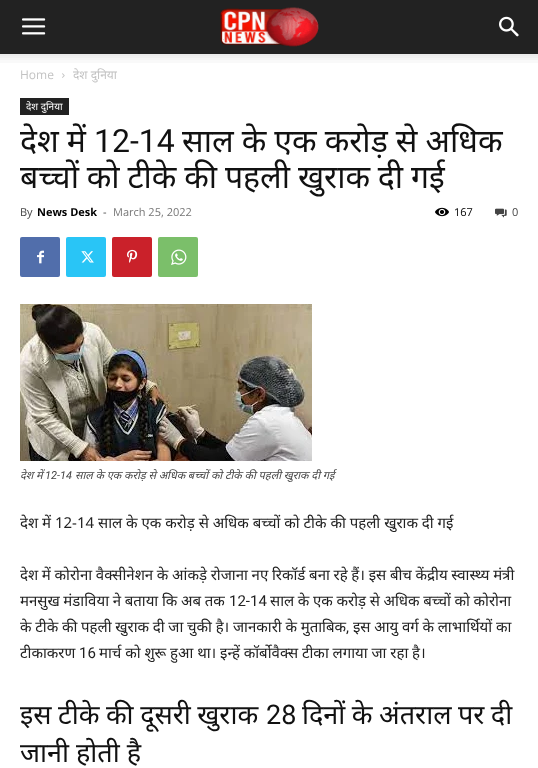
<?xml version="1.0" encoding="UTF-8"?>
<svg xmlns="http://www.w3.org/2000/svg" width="538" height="768">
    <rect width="100%" height="100%" fill="#FFFFFF"/>
    <rect x="0" y="0" width="538" height="54" fill="#222222"/>
    <image x="22" y="18" width="24" height="17" href="img_01.png"/>
    <image x="220" y="7" width="99" height="40" href="img_02.png"/>
    <image x="499" y="16" width="20" height="21" href="img_03.png"/>
    <image x="0" y="54" width="538" height="9" href="img_04.png"/>
    <text x="20" y="79" font-family="Open Sans" font-size="12" fill="#C3C3C3">Home</text>
    <image x="62" y="73" width="3" height="5" href="img_05.png"/>
    <text x="73" y="79" font-family="Noto Sans" font-size="12" fill="#C3C3C3">देश दुनिया</text>
    <rect x="20" y="98" width="49" height="17" fill="#222222"/>
    <text x="26" y="110" font-family="Noto Sans" font-size="10" fill="#FFFFFF">देश दुनिया</text>
    <text x="20" y="152" word-spacing="-0.25" font-family="Noto Sans" font-size="32" fill="#111111">देश में</text>
    <text x="94" y="152" font-family="Roboto" font-size="32" fill="#111111">12-14</text>
    <text x="182" y="152" word-spacing="-0.25" font-family="Noto Sans" font-size="32" fill="#111111">साल के एक करोड़ से अधिक</text>
    <text x="20" y="188" word-spacing="-0.5" font-family="Noto Sans" font-size="32" fill="#111111">बच्चों को टीके की पहली खुराक दी गई</text>
    <text x="20" y="216" font-family="Open Sans" font-size="11" fill="#444444">By</text>
    <text x="37" y="216" font-family="Open Sans" font-size="11" font-weight="700" fill="#000000">News Desk</text>
    <text x="103" y="216" font-family="Open Sans" font-size="11" fill="#444444">-</text>
    <text x="113" y="216" font-family="Open Sans" font-size="11" fill="#767676">March 25, 2022</text>
    <image x="435" y="207" width="14" height="10" href="img_06.png"/>
    <text x="454" y="216" font-family="Open Sans" font-size="11" fill="#000000">167</text>
    <image x="495" y="208" width="12" height="10" href="img_07.png"/>
    <text x="512" y="216" font-family="Open Sans" font-size="11" fill="#444444">0</text>
    <rect x="20" y="237" width="40" height="40" rx="2" fill="#516EAB"/>
    <image x="37" y="250" width="7" height="14" href="img_08.png"/>
    <rect x="66" y="237" width="40" height="40" rx="2" fill="#29C5F6"/>
    <image x="81" y="251" width="13" height="12" href="img_09.png"/>
    <rect x="112" y="237" width="40" height="40" rx="2" fill="#CA212A"/>
    <image x="127" y="249" width="11" height="14" href="img_10.png"/>
    <rect x="158" y="237" width="40" height="40" rx="2" fill="#7BBF6A"/>
    <image x="171" y="249" width="16" height="16" href="img_11.png"/>
    <image x="20" y="304" width="292" height="157" href="img_12.png"/>
    <text x="20" y="479" word-spacing="-0.1" font-family="Noto Sans" font-size="11" font-style="italic" fill="#444444">देश में</text>
    <text x="45" y="479" font-family="Roboto" font-size="11" font-style="italic" fill="#444444">12-14</text>
    <text x="75" y="479" word-spacing="-0.1" font-family="Noto Sans" font-size="11" font-style="italic" fill="#444444">साल के एक करोड़ से अधिक बच्चों को टीके की पहली खुराक दी गई</text>
    <text x="20" y="528" font-family="Noto Sans" font-size="15" fill="#222222">देश में 12-14 साल के एक करोड़ से अधिक बच्चों को टीके की पहली खुराक दी गई</text>
    <text font-family="Noto Sans" font-size="15" fill="#222222">
        <tspan x="20" y="580" word-spacing="-0.2">देश में कोरोना वैक्सीनेशन के आंकड़े रोजाना नए रिकॉर्ड बना रहे हैं। इस बीच केंद्रीय स्वास्थ्य मंत्री</tspan>
        <tspan x="20" y="606" word-spacing="-0.25">मनसुख मंडाविया ने बताया कि अब तक</tspan>
    </text>
    <text x="229" y="606" font-family="Roboto" font-size="15" fill="#222222">12-14</text>
    <text x="270" y="606" word-spacing="-0.25" font-family="Noto Sans" font-size="15" fill="#222222">साल के एक करोड़ से अधिक बच्चों को कोरोना</text>
    <text x="20" y="632" word-spacing="-0.2" font-family="Noto Sans" font-size="15" fill="#222222">के टीके की पहली खुराक दी जा चुकी है। जानकारी के मुताबिक</text>
    <text x="346" y="632" font-family="Roboto" font-size="15" fill="#222222">,</text>
    <text x="353" y="632" word-spacing="-0.2" font-family="Noto Sans" font-size="15" fill="#222222">इस आयु वर्ग के लाभार्थियों का</text>
    <text x="20" y="658" font-family="Noto Sans" font-size="15" fill="#222222">टीकाकरण</text>
    <text x="79" y="658" font-family="Roboto" font-size="15" fill="#222222">16</text>
    <text x="99" y="658" word-spacing="-0.1" font-family="Noto Sans" font-size="15" fill="#222222">मार्च को शुरू हुआ था। इन्हें कॉर्बोवैक्स टीका लगाया जा रहा है।</text>
    <text x="20" y="724" word-spacing="-0.5" font-family="Noto Sans" font-size="27" fill="#111111">इस टीके की दूसरी खुराक</text>
    <text x="266" y="724" font-family="Roboto" font-size="27" fill="#111111">28</text>
    <text x="302" y="724" word-spacing="-0.5" font-family="Noto Sans" font-size="27" fill="#111111">दिनों के अंतराल पर दी</text>
    <text x="20" y="762" font-family="Noto Sans" font-size="27" fill="#111111">जानी होती है</text>
</svg>
